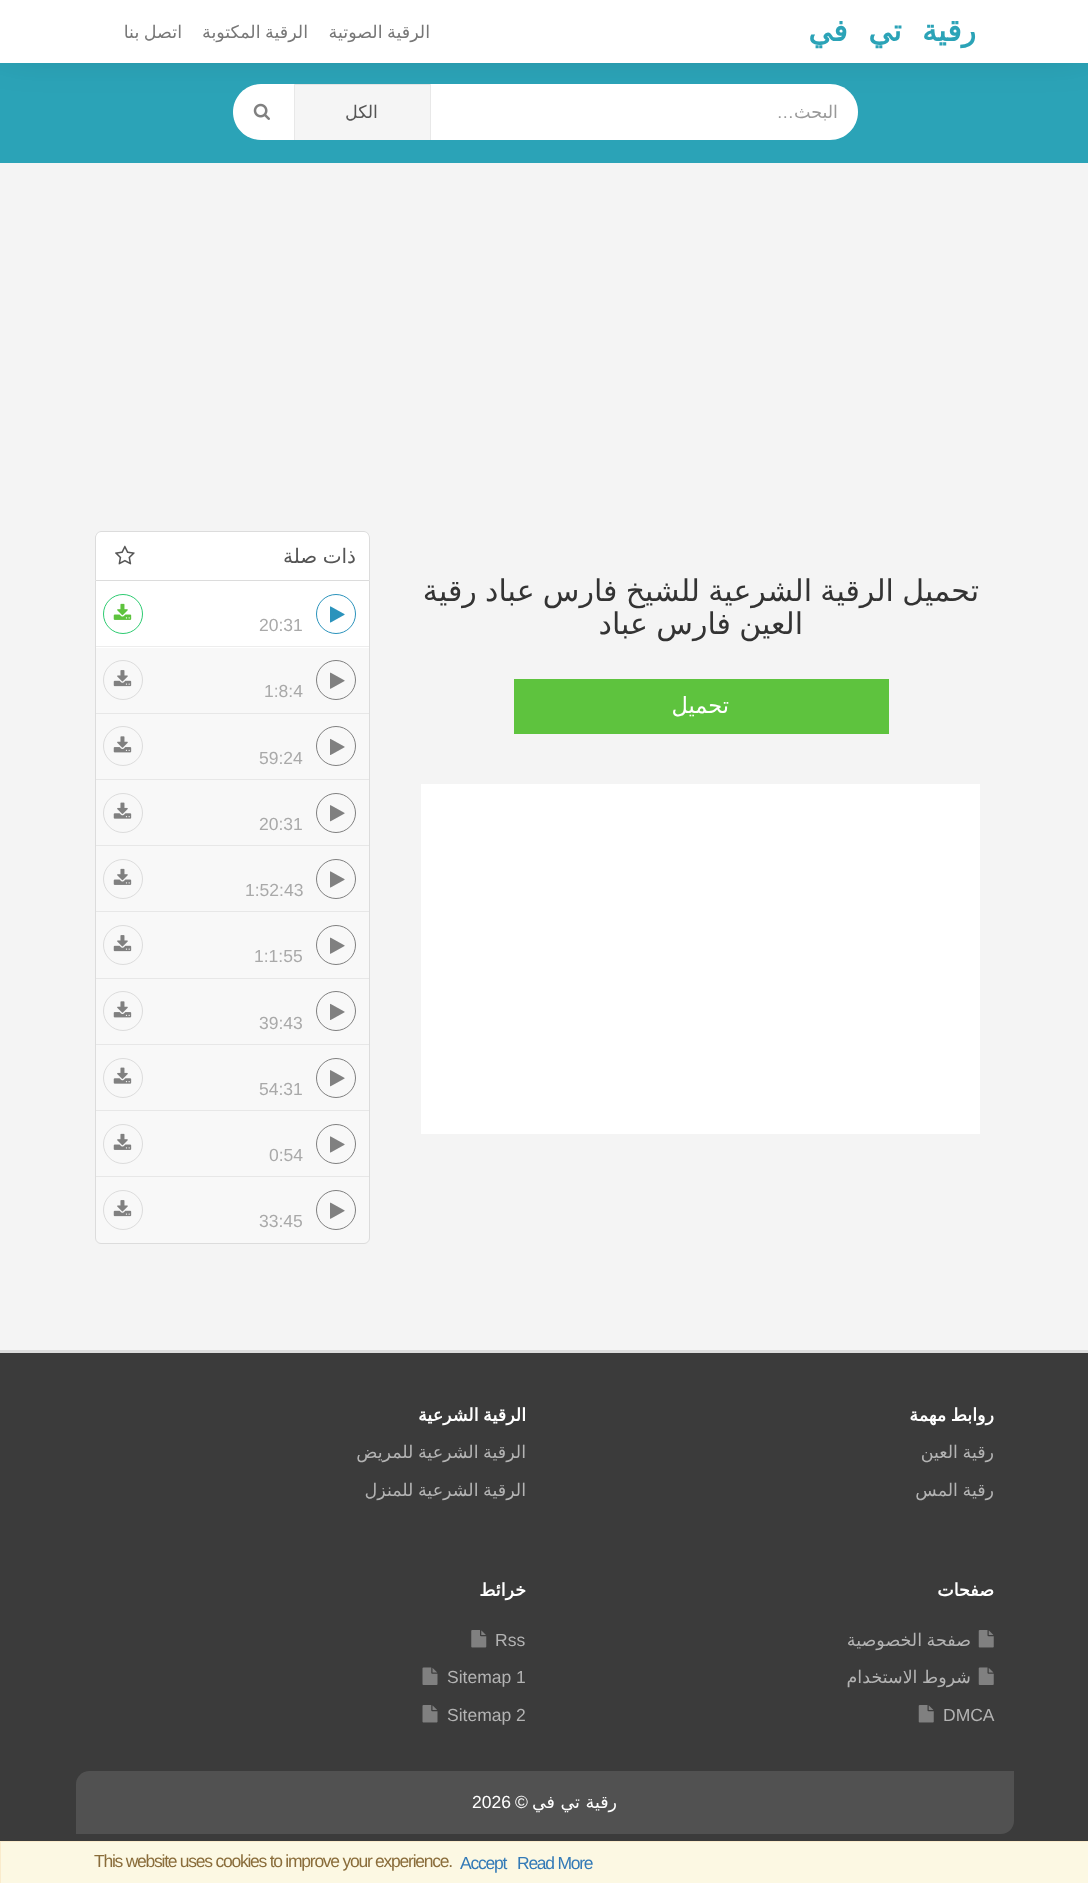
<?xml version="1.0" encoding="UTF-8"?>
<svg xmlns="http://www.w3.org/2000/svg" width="1088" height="1883">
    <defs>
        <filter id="blur1" x="-50%" y="-200%" width="200%" height="500%"><feGaussianBlur stdDeviation="25"/></filter>
    </defs>
    <rect width="100%" height="100%" fill="#F4F4F4"/>
    <rect x="0" y="63" width="1088" height="100" fill="#2BA3B7"/>
    <rect x="0" y="-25" width="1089" height="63" fill="#000000" fill-opacity="0.31" filter="url(#blur1)"/>
    <rect x="0" y="0" width="1088" height="63" fill="#FFFFFF"/>
    <text x="976" y="41" word-spacing="11" font-family="DejaVu Sans" font-size="30" font-weight="700" letter-spacing="-2.5" direction="rtl" fill="#2BA3B7">رقية تي في</text>
    <text x="430" y="38" word-spacing="-1" font-family="DejaVu Sans" font-size="17.5" direction="rtl" fill="#777777">الرقية الصوتية</text>
    <text x="308" y="38" word-spacing="-1" font-family="DejaVu Sans" font-size="17.5" direction="rtl" fill="#777777">الرقية المكتوبة</text>
    <text x="182" y="38" word-spacing="-1" font-family="DejaVu Sans" font-size="17.5" direction="rtl" fill="#777777">اتصل بنا</text>
    <path d="M 431 84 H 830 C 845.5 84 858 96.5 858 112 C 858 127.5 845.5 140 830 140 H 431 Z" fill="#FFFFFF"/>
    <text x="838" y="118" font-family="DejaVu Sans" font-size="17.5" direction="rtl" fill="#999999">البحث</text>
    <text x="794" y="118" font-family="Liberation Sans" font-size="17.5" direction="rtl" fill="#999999">…</text>
    <rect x="295" y="85" width="135" height="55" fill="#F5F5F5"/>
    <rect x="295" y="84" width="135" height="1" fill="#E3E3E3"/>
    <rect x="430" y="84" width="1" height="56" fill="#E8E8E8"/>
    <rect x="294" y="84" width="1" height="56" fill="#E8E8E8"/>
    <text x="378" y="118" font-family="DejaVu Sans" font-size="17.5" direction="rtl" fill="#555555">الكل</text>
    <path d="M 261 84 H 294 V 140 H 261 C 245.5 140 233 127.5 233 112 C 233 96.5 245.5 84 261 84 Z" fill="#FFFFFF"/>
    <image x="253" y="103" width="17" height="17" href="img_01.png"/>
    <text x="979" y="601" word-spacing="-1.25" font-family="DejaVu Sans" font-size="30" direction="rtl" fill="#333333">تحميل الرقية الشرعية للشيخ فارس عباد رقية</text>
    <text x="803" y="634" word-spacing="-1.25" font-family="DejaVu Sans" font-size="30" direction="rtl" fill="#333333">العين فارس عباد</text>
    <rect x="514" y="679" width="375" height="55" fill="#5EC33E"/>
    <text x="729" y="713" font-family="DejaVu Sans" font-size="22.5" direction="rtl" fill="#FFFFFF">تحميل</text>
    <rect x="421" y="784" width="559" height="350" fill="#FFFFFF"/>
    <path d="M 101 531 H 364 C 367.5 531 370 533.5 370 537 V 580 H 95 V 537 C 95 533.5 97.5 531 101 531 Z" fill="#FFFFFF"/>
    <path d="M 101 531 H 364 C 367 531 370 534 370 538 V 580 H 95 V 538 C 95 534 98 531 101 531 Z M 101 532 H 364 C 367 532 369 535 369 538 V 580 H 96 V 538 C 96 535 98 532 101 532 Z" fill="#DCDCDC" fill-rule="evenodd"/>
    <text x="356" y="563" word-spacing="-1" font-family="DejaVu Sans" font-size="20" direction="rtl" fill="#555555">ذات صلة</text>
    <image x="115" y="545" width="20" height="20" href="img_02.png"/>
    <path d="M 95.5 580.5 H 369.5 V 1238 C 369.5 1241 367 1243.5 364 1243.5 H 101 C 98 1243.5 95.5 1241 95.5 1238 Z" fill="#F8F8F8" stroke="#DCDCDC"/>
    <rect x="96" y="581" width="273" height="67" fill="#FFFFFF"/>
    <rect x="96" y="646" width="273" height="1" fill="#EDEDED"/>
    <circle cx="336" cy="614" r="19.5" fill="none" stroke="#2B93BC"/>
    <image x="330" y="606" width="15" height="17" href="img_03.png"/>
    <text x="259" y="631" font-family="Liberation Sans" font-size="17.5" fill="#A9A9A9">20:31</text>
    <circle cx="123" cy="614" r="19.5" fill="none" stroke="#2DCB71"/>
    <image x="113" y="603" width="19" height="17" href="img_04.png"/>
    <rect x="96" y="713" width="273" height="1" fill="#E7E7E7"/>
    <circle cx="336" cy="680" r="19.5" fill="none" stroke="#808080"/>
    <image x="330" y="672" width="15" height="17" href="img_05.png"/>
    <text x="264" y="697" font-family="Liberation Sans" font-size="17.5" fill="#A9A9A9">1:8:4</text>
    <circle cx="123" cy="680" r="19.5" fill="none" stroke="#DCDCDC"/>
    <image x="113" y="670" width="19" height="17" href="img_06.png"/>
    <rect x="96" y="779" width="273" height="1" fill="#E7E7E7"/>
    <circle cx="336" cy="746" r="19.5" fill="none" stroke="#808080"/>
    <image x="330" y="738" width="15" height="17" href="img_07.png"/>
    <text x="259" y="764" font-family="Liberation Sans" font-size="17.5" fill="#A9A9A9">59:24</text>
    <circle cx="123" cy="746" r="19.5" fill="none" stroke="#DCDCDC"/>
    <image x="113" y="736" width="19" height="17" href="img_08.png"/>
    <rect x="96" y="845" width="273" height="1" fill="#E7E7E7"/>
    <circle cx="336" cy="813" r="19.5" fill="none" stroke="#808080"/>
    <image x="330" y="805" width="15" height="17" href="img_09.png"/>
    <text x="259" y="830" font-family="Liberation Sans" font-size="17.5" fill="#A9A9A9">20:31</text>
    <circle cx="123" cy="813" r="19.5" fill="none" stroke="#DCDCDC"/>
    <image x="113" y="802" width="19" height="17" href="img_10.png"/>
    <rect x="96" y="911" width="273" height="1" fill="#E7E7E7"/>
    <circle cx="336" cy="879" r="19.5" fill="none" stroke="#808080"/>
    <image x="330" y="871" width="15" height="17" href="img_11.png"/>
    <text x="245" y="896" font-family="Liberation Sans" font-size="17.5" fill="#A9A9A9">1:52:43</text>
    <circle cx="123" cy="879" r="19.5" fill="none" stroke="#DCDCDC"/>
    <image x="113" y="868" width="19" height="17" href="img_12.png"/>
    <rect x="96" y="978" width="273" height="1" fill="#E7E7E7"/>
    <circle cx="336" cy="945" r="19.5" fill="none" stroke="#808080"/>
    <image x="330" y="937" width="15" height="17" href="img_05.png"/>
    <text x="254" y="962" font-family="Liberation Sans" font-size="17.5" fill="#A9A9A9">1:1:55</text>
    <circle cx="123" cy="945" r="19.5" fill="none" stroke="#DCDCDC"/>
    <image x="113" y="935" width="19" height="17" href="img_13.png"/>
    <rect x="96" y="1044" width="273" height="1" fill="#E7E7E7"/>
    <circle cx="336" cy="1011" r="19.5" fill="none" stroke="#808080"/>
    <image x="330" y="1003" width="15" height="17" href="img_07.png"/>
    <text x="259" y="1029" font-family="Liberation Sans" font-size="17.5" fill="#A9A9A9">39:43</text>
    <circle cx="123" cy="1011" r="19.5" fill="none" stroke="#DCDCDC"/>
    <image x="113" y="1001" width="19" height="17" href="img_14.png"/>
    <rect x="96" y="1110" width="273" height="1" fill="#E7E7E7"/>
    <circle cx="336" cy="1078" r="19.5" fill="none" stroke="#808080"/>
    <image x="330" y="1070" width="15" height="17" href="img_09.png"/>
    <text x="259" y="1095" font-family="Liberation Sans" font-size="17.5" fill="#A9A9A9">54:31</text>
    <circle cx="123" cy="1078" r="19.5" fill="none" stroke="#DCDCDC"/>
    <image x="113" y="1067" width="19" height="17" href="img_15.png"/>
    <rect x="96" y="1176" width="273" height="1" fill="#E7E7E7"/>
    <circle cx="336" cy="1144" r="19.5" fill="none" stroke="#808080"/>
    <image x="330" y="1136" width="15" height="17" href="img_11.png"/>
    <text x="269" y="1161" font-family="Liberation Sans" font-size="17.5" fill="#A9A9A9">0:54</text>
    <circle cx="123" cy="1144" r="19.5" fill="none" stroke="#DCDCDC"/>
    <image x="113" y="1133" width="19" height="17" href="img_16.png"/>
    <circle cx="336" cy="1210" r="19.5" fill="none" stroke="#808080"/>
    <image x="330" y="1202" width="15" height="17" href="img_05.png"/>
    <text x="259" y="1227" font-family="Liberation Sans" font-size="17.5" fill="#A9A9A9">33:45</text>
    <circle cx="123" cy="1210" r="19.5" fill="none" stroke="#DCDCDC"/>
    <image x="113" y="1200" width="19" height="17" href="img_17.png"/>
    <rect x="0" y="1353" width="1088" height="488" fill="#3B3B3B"/>
    <rect x="0" y="1350" width="1088" height="3" fill="#DCDCDC"/>
    <text x="994" y="1421" word-spacing="-1" font-family="DejaVu Sans" font-size="17.5" font-weight="700" direction="rtl" fill="#FFFFFF">روابط مهمة</text>
    <text x="994" y="1458" word-spacing="-1" font-family="DejaVu Sans" font-size="17.5" direction="rtl" fill="#B3B3B3">رقية العين</text>
    <text x="994" y="1496" word-spacing="-1" font-family="DejaVu Sans" font-size="17.5" direction="rtl" fill="#B3B3B3">رقية المس</text>
    <text x="526" y="1421" word-spacing="-1" font-family="DejaVu Sans" font-size="17.5" font-weight="700" direction="rtl" fill="#FFFFFF">الرقية الشرعية</text>
    <text x="526" y="1458" word-spacing="-1" font-family="DejaVu Sans" font-size="17.5" direction="rtl" fill="#B3B3B3">الرقية الشرعية للمريض</text>
    <text x="526" y="1496" word-spacing="-1" font-family="DejaVu Sans" font-size="17.5" direction="rtl" fill="#B3B3B3">الرقية الشرعية للمنزل</text>
    <text x="994" y="1596" font-family="DejaVu Sans" font-size="17.5" font-weight="700" direction="rtl" fill="#FFFFFF">صفحات</text>
    <image x="978" y="1630" width="16" height="18" href="img_18.png"/>
    <text x="971" y="1646" word-spacing="-1" font-family="DejaVu Sans" font-size="17.5" direction="rtl" fill="#B3B3B3">صفحة الخصوصية</text>
    <image x="978" y="1667" width="16" height="18" href="img_19.png"/>
    <text x="971" y="1683" word-spacing="-1" font-family="DejaVu Sans" font-size="17.5" direction="rtl" fill="#B3B3B3">شروط الاستخدام</text>
    <text x="943" y="1721" font-family="Liberation Sans" font-size="17.5" fill="#B3B3B3">DMCA</text>
    <image x="918" y="1705" width="16" height="18" href="img_18.png"/>
    <text x="526" y="1596" font-family="DejaVu Sans" font-size="17.5" font-weight="700" direction="rtl" fill="#FFFFFF">خرائط</text>
    <text x="495" y="1646" font-family="Liberation Sans" font-size="17.5" fill="#B3B3B3">Rss</text>
    <image x="471" y="1630" width="16" height="18" href="img_20.png"/>
    <text x="447" y="1683" font-family="Liberation Sans" font-size="17.5" fill="#B3B3B3">Sitemap 1</text>
    <image x="422" y="1667" width="16" height="18" href="img_21.png"/>
    <text x="447" y="1721" font-family="Liberation Sans" font-size="17.5" fill="#B3B3B3">Sitemap 2</text>
    <image x="422" y="1705" width="16" height="18" href="img_22.png"/>
    <path d="M 89 1771 H 1014 V 1821 C 1014 1828 1008 1834 1001 1834 H 76 V 1784 C 76 1777 82 1771 89 1771 Z" fill="#515151"/>
    <text x="617" y="1808" font-family="DejaVu Sans" font-size="17.5" direction="rtl" fill="#FFFFFF">رقية تي في</text>
    <text x="528" y="1808" font-family="Liberation Sans" font-size="17.5" direction="rtl" fill="#FFFFFF">©</text>
    <text x="472" y="1808" font-family="Liberation Sans" font-size="17.5" fill="#FFFFFF">2026</text>
    <rect x="0.5" y="1841.5" width="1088" height="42" fill="#FCF8E3" stroke="#FAEBCC"/>
    <text x="517" y="1869" font-family="Liberation Sans" font-size="17.5" letter-spacing="-1.25" fill="#337AB7">Read More</text>
    <text x="460" y="1869" font-family="Liberation Sans" font-size="17.5" letter-spacing="-1.25" fill="#337AB7">Accept</text>
    <text x="94" y="1867" font-family="Liberation Sans" font-size="17.5" letter-spacing="-1.25" fill="#8A6D3B">This website uses cookies to improve your experience.</text>
</svg>
